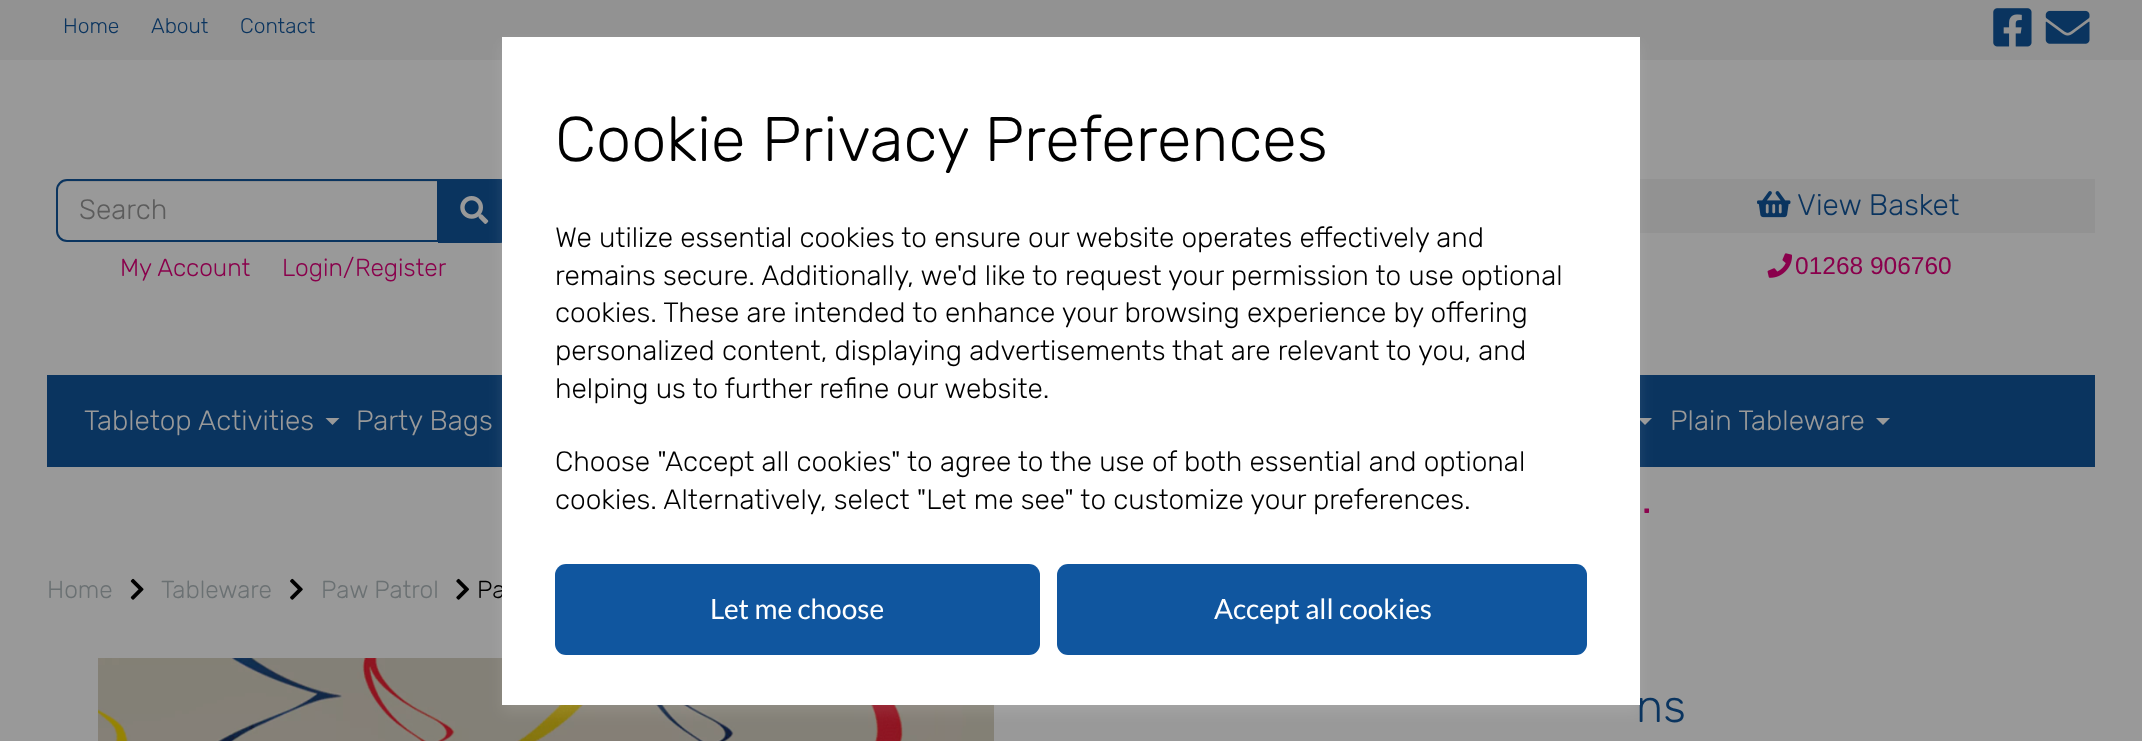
<?xml version="1.0" encoding="UTF-8"?>
<svg xmlns="http://www.w3.org/2000/svg" width="2142" height="741">
    <defs>
        <filter id="blur1" x="-50%" y="-200%" width="200%" height="500%"><feGaussianBlur stdDeviation="7"/></filter>
    </defs>
    <rect width="100%" height="100%" fill="#999999"/>
    <rect x="0" y="0" width="2142" height="60" fill="#929292"/>
    <text x="63" y="33" font-family="Rubik" font-size="21" font-weight="300" fill="#0A345F">Home</text>
    <text x="151" y="33" font-family="Rubik" font-size="21" font-weight="300" fill="#0A345F">About</text>
    <text x="240" y="33" font-family="Rubik" font-size="21" font-weight="300" fill="#0A345F">Contact</text>
    <image x="1993" y="8" width="39" height="39" href="img_01.png"/>
    <image x="2045" y="10" width="45" height="34" href="img_02.png"/>
    <path d="M 66 182 H 438 V 180 H 67 C 61 180 58 185 58 191 C 58 186 62 182 66 182 Z" fill="#8E8E8E"/>
    <path d="M 67 180 H 438 V 241 H 67 C 61.5 241 57 236.5 57 231 V 190 C 57 184.5 61.5 180 67 180 Z" fill="none" stroke="#0A345F" stroke-width="2"/>
    <text x="79" y="219" font-family="Rubik" font-size="28" font-weight="300" fill="#5C5C5C">Search</text>
    <path d="M 439 180 H 500 C 505.5 180 510 184.5 510 190 V 232 C 510 237.5 505.5 242 500 242 H 439 Z" fill="#0A345F" stroke="#0A345F" stroke-width="2"/>
    <image x="460" y="196" width="29" height="28" href="img_03.png"/>
    <text x="120" y="276" font-family="Rubik" font-size="24.5" font-weight="300" fill="#8A004C">My Account</text>
    <text x="282" y="276" font-family="Rubik" font-size="24.5" font-weight="300" fill="#8A004C">Login/Register</text>
    <rect x="1640" y="179" width="455" height="54" fill="#929292"/>
    <image x="1757" y="191" width="34" height="27" href="img_04.png"/>
    <text x="1797" y="215" font-family="Rubik" font-size="29.75" font-weight="300" fill="#0A345F">View Basket</text>
    <image x="1767" y="253" width="25" height="25" href="img_05.png"/>
    <text x="1795" y="274" font-family="Liberation Sans" font-size="24.5" fill="#8A004C">01268 906760</text>
    <rect x="47" y="375" width="2048" height="92" fill="#0A345F"/>
    <text x="84" y="430" font-family="Rubik" font-size="28" font-weight="300" fill="#999999">Tabletop Activities</text>
    <path d="M 325.5 418 H 339.5 L 332.5 425 Z" fill="#999999"/>
    <text x="356" y="430" font-family="Rubik" font-size="28" font-weight="300" fill="#999999">Party Bags</text>
    <path d="M 1638 418 H 1652 L 1645 425 Z" fill="#999999"/>
    <text x="1670" y="430" font-family="Rubik" font-size="28" font-weight="300" fill="#999999">Plain Tableware</text>
    <path d="M 1876 418 H 1890 L 1883 425 Z" fill="#999999"/>
    <text x="1643" y="513" font-family="Rubik" font-size="26" font-weight="700" fill="#8A004C">.</text>
    <image x="98" y="658" width="896" height="83" href="img_09.png"/>
    <rect x="502" y="44" width="1138" height="668" fill="#FFFFFF" fill-opacity="0.1" filter="url(#blur1)"/>
    <text x="477" y="598" font-family="Rubik" font-size="24.5" font-weight="300" fill="#000000">Pa</text>
    <text x="1636" y="722" font-family="Rubik" font-size="46" font-weight="300" fill="#0A345F">ns</text>
    <rect x="502" y="37" width="1138" height="668" fill="#FFFFFF"/>
    <text x="555" y="161" font-family="Rubik" font-size="63" font-weight="300" fill="#000000">Cookie Privacy Preferences</text>
    <text font-family="Rubik" font-size="28" font-weight="300" fill="#000000">
        <tspan x="555" y="247">We utilize essential cookies to ensure our website operates effectively and</tspan>
        <tspan x="555" y="285">remains secure. Additionally, we'd like to request your permission to use optional</tspan>
        <tspan x="555" y="322">cookies. These are intended to enhance your browsing experience by offering</tspan>
        <tspan x="555" y="360">personalized content, displaying advertisements that are relevant to you, and</tspan>
        <tspan x="555" y="398">helping us to further refine our website.</tspan>
    </text>
    <text font-family="Rubik" font-size="28" font-weight="300" fill="#000000">
        <tspan x="555" y="471">Choose "Accept all cookies" to agree to the use of both essential and optional</tspan>
        <tspan x="555" y="509">cookies. Alternatively, select "Let me see" to customize your preferences.</tspan>
    </text>
    <rect x="555" y="564" width="485" height="91" rx="11" fill="#10569F"/>
    <text x="710" y="619" font-family="Lato" font-size="28" fill="#FFFFFF">Let me choose</text>
    <rect x="1057" y="564" width="530" height="91" rx="11" fill="#10569F"/>
    <text x="1214" y="619" font-family="Lato" font-size="28" fill="#FFFFFF">Accept all cookies</text>
    <text x="47" y="598" font-family="Rubik" font-size="24.5" font-weight="300" fill="#6B7173">Home</text>
    <image x="130" y="578" width="14" height="22" href="img_06.png"/>
    <text x="161" y="598" font-family="Rubik" font-size="24.5" font-weight="300" fill="#6B7173">Tableware</text>
    <image x="290" y="578" width="13" height="22" href="img_07.png"/>
    <text x="321" y="598" font-family="Rubik" font-size="24.5" font-weight="300" fill="#6B7173">Paw Patrol</text>
    <image x="456" y="578" width="13" height="22" href="img_08.png"/>
</svg>
